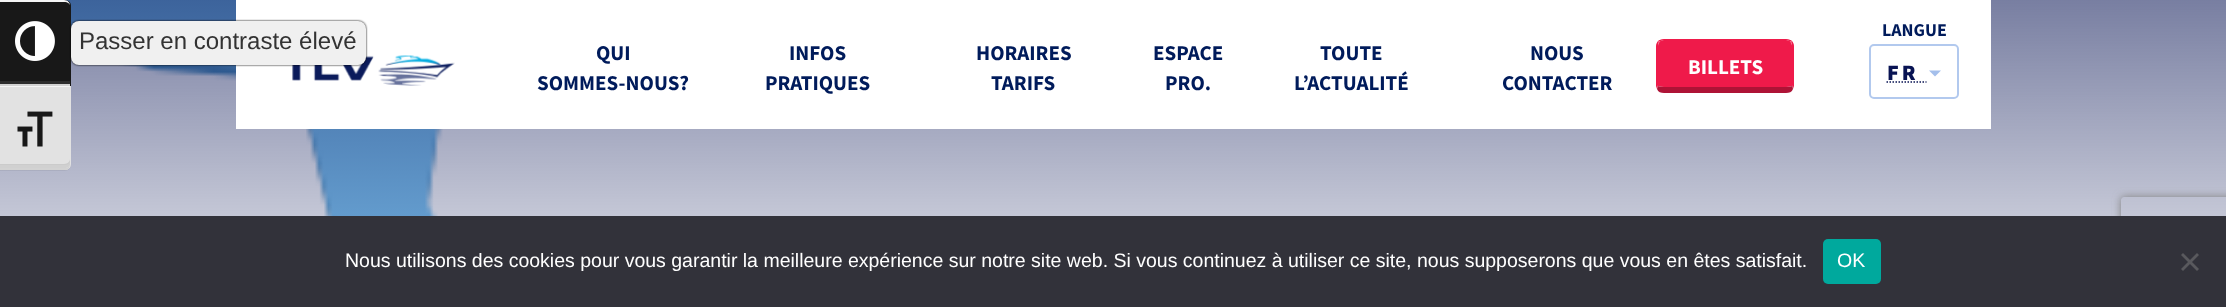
<?xml version="1.0" encoding="UTF-8"?>
<svg xmlns="http://www.w3.org/2000/svg" width="2226" height="307">
    <defs>
        <filter id="blur1" x="-50%" y="-200%" width="200%" height="500%"><feGaussianBlur stdDeviation="1"/></filter>
        <clipPath id="clip1"><path d="M 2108 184 H 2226 V 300 H 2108 Z M 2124 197 H 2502 C 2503.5 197 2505 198.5 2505 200 V 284 C 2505 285.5 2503.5 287 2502 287 H 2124 C 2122.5 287 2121 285.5 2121 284 V 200 C 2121 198.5 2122.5 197 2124 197 Z" clip-rule="evenodd"/></clipPath>
        <filter id="blur2" x="-50%" y="-200%" width="200%" height="500%"><feGaussianBlur stdDeviation="4"/></filter>
    </defs>
    <rect width="100%" height="100%" fill="#FFFFFF"/>
    <image x="0" y="0" width="2226" height="216" href="img_03.png"/>
    <path d="M 0 0 H 65 C 68.5 0 71 2.5 71 6 V 86 H 0 Z" fill="#181818"/>
    <path d="M 0 81 V 84 H 70 V 6 V 4 V 81 Z" fill="#2D2D2D"/>
    <path d="M 0 0 V 2 H 64 C 68 2 70 4 70 6 C 70 3 68 0 64 0 Z" fill="#F5F5F5"/>
    <rect x="0" y="84" width="70" height="2" fill="#D2D2D2"/>
    <image x="15" y="21" width="40" height="40" href="img_01.png"/>
    <rect x="236" y="0" width="1755" height="129" fill="#FFFFFF"/>
    <image x="292" y="55" width="163" height="31" href="img_04.png"/>
    <rect x="71" y="21" width="295" height="44" rx="8" fill="#000000" filter="url(#blur1)"/>
    <rect x="71" y="21" width="295" height="44" rx="8" fill="#F0F0F0"/>
    <text x="79" y="49" font-family="Liberation Sans" font-size="24" fill="#333333">Passer en contraste élevé</text>
    <path d="M 0 170 V 171 H 65 C 68 171 71 168 71 165 V 87 H 70 V 164 C 70 167 68 170 64 170 Z" fill="#000000" fill-opacity="0.05"/>
    <path d="M 0 86 H 71 V 164 C 71 167.5 68.5 170 65 170 H 0 Z" fill="#E2E2E2"/>
    <path d="M 0 164 V 168 H 64 C 68 168 70 166 70 164 V 87 V 159 C 70 161 68 164 64 164 Z" fill="#CBCBCB"/>
    <path d="M 0 165 V 168 H 64 C 68 168 70 166 70 164 V 87 V 160 C 70 163 68 165 64 165 Z" fill="#FFFFFF" fill-opacity="0.1"/>
    <rect x="0" y="86" width="70" height="1" fill="#F5F5F5"/>
    <path d="M 67 170 C 69 169 70 166 70 164 C 70 166 68 168 64 168 H 0 V 170 Z" fill="#D2D2D2"/>
    <image x="17" y="111" width="36" height="36" href="img_02.png"/>
    <text x="596" y="60" font-family="Source Sans Pro" font-size="21" font-weight="700" fill="#001B5B">QUI</text>
    <text x="537" y="90" font-family="Source Sans Pro" font-size="21" font-weight="700" fill="#001B5B">SOMMES-NOUS?</text>
    <text x="789" y="60" font-family="Source Sans Pro" font-size="21" font-weight="700" fill="#001B5B">INFOS</text>
    <text x="765" y="90" font-family="Source Sans Pro" font-size="21" font-weight="700" fill="#001B5B">PRATIQUES</text>
    <text x="976" y="60" font-family="Source Sans Pro" font-size="21" font-weight="700" fill="#001B5B">HORAIRES</text>
    <text x="991" y="90" font-family="Source Sans Pro" font-size="21" font-weight="700" fill="#001B5B">TARIFS</text>
    <text x="1153" y="60" font-family="Source Sans Pro" font-size="21" font-weight="700" fill="#001B5B">ESPACE</text>
    <text x="1165" y="90" font-family="Source Sans Pro" font-size="21" font-weight="700" fill="#001B5B">PRO.</text>
    <text x="1320" y="60" font-family="Source Sans Pro" font-size="21" font-weight="700" fill="#001B5B">TOUTE</text>
    <text x="1294" y="90" font-family="Source Sans Pro" font-size="21" font-weight="700" fill="#001B5B">L’ACTUALITÉ</text>
    <text x="1530" y="60" font-family="Source Sans Pro" font-size="21" font-weight="700" fill="#001B5B">NOUS</text>
    <text x="1502" y="90" font-family="Source Sans Pro" font-size="21" font-weight="700" fill="#001B5B">CONTACTER</text>
    <path d="M 1664 40 H 1786 C 1790 40 1792 43 1792 46 V 86 C 1792 86 1790 87 1786 87 H 1664 C 1660 87 1658 86 1658 86 V 46 C 1658 43 1660 40 1664 40 Z" fill="#EF1A4A"/>
    <path d="M 1664 39 C 1661 39 1659 40 1658 41 L 1659 42 C 1660 41 1662 40 1664 40 H 1786 C 1788 40 1790 41 1791 42 L 1792 41 C 1791 40 1789 39 1786 39 Z" fill="#EF1A4A"/>
    <path d="M 1794 86 V 46 C 1794 44 1793 42 1792 41 L 1791 42 C 1792 43 1792 45 1792 46 V 85 L 1793 89 Z" fill="#EF1A4A"/>
    <path d="M 1664 93 H 1786 C 1789 93 1792 92 1793 89 L 1792 85 V 86 C 1792 86 1790 87 1786 87 H 1664 C 1660 87 1658 86 1658 86 V 85 L 1657 89 C 1658 92 1661 93 1664 93 Z" fill="#AE1336"/>
    <path d="M 1656 46 V 86 L 1657 89 L 1658 85 V 46 C 1658 45 1658 43 1659 42 L 1658 41 C 1657 42 1656 44 1656 46 Z" fill="#EF1A4A"/>
    <text x="1688" y="74" font-family="Source Sans Pro" font-size="21" font-weight="700" fill="#FFFFFF">BILLETS</text>
    <text x="1882" y="36" font-family="Source Sans Pro" font-size="18" font-weight="700" fill="#001B5B">LANGUE</text>
    <rect x="1870" y="45" width="88" height="53" rx="4" fill="none" stroke="#B2C9EE" stroke-width="2"/>
    <text x="1887" y="80" font-family="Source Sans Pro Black" font-size="22" font-weight="900" letter-spacing="3" fill="#081353">FR</text>
    <path d="M 1886.5 82 H 1926.5" fill="none" stroke="#081353" stroke-width="1.5" stroke-dasharray="1.5 1.5"/>
    <path d="M 1929 70.5 H 1941 L 1935 76.5 Z" fill="#A4BFEB"/>
    <g clip-path="url(#clip1)">
        <rect x="2121" y="197" width="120" height="90" rx="3" fill="#808080" filter="url(#blur2)"/>
    </g>
    <rect x="0" y="216" width="2226" height="91" fill="#32323A"/>
    <text x="345" y="267" font-family="Liberation Sans" font-size="19.5" fill="#FFFFFF">Nous utilisons des cookies pour vous garantir la meilleure expérience sur notre site web. Si vous continuez à utiliser ce site, nous supposerons que vous en êtes satisfait.</text>
    <rect x="1823" y="239" width="58" height="45" rx="5" fill="#00A99D"/>
    <text x="1837" y="267" font-family="Liberation Sans" font-size="19.5" fill="#FFFFFF">OK</text>
    <path d="M 2197 253 L 2199 255 L 2183 271 L 2181 269 Z" fill="#59595D"/>
    <path d="M 2181 255 L 2183 253 L 2199 269 L 2197 271 Z" fill="#59595D"/>
</svg>
